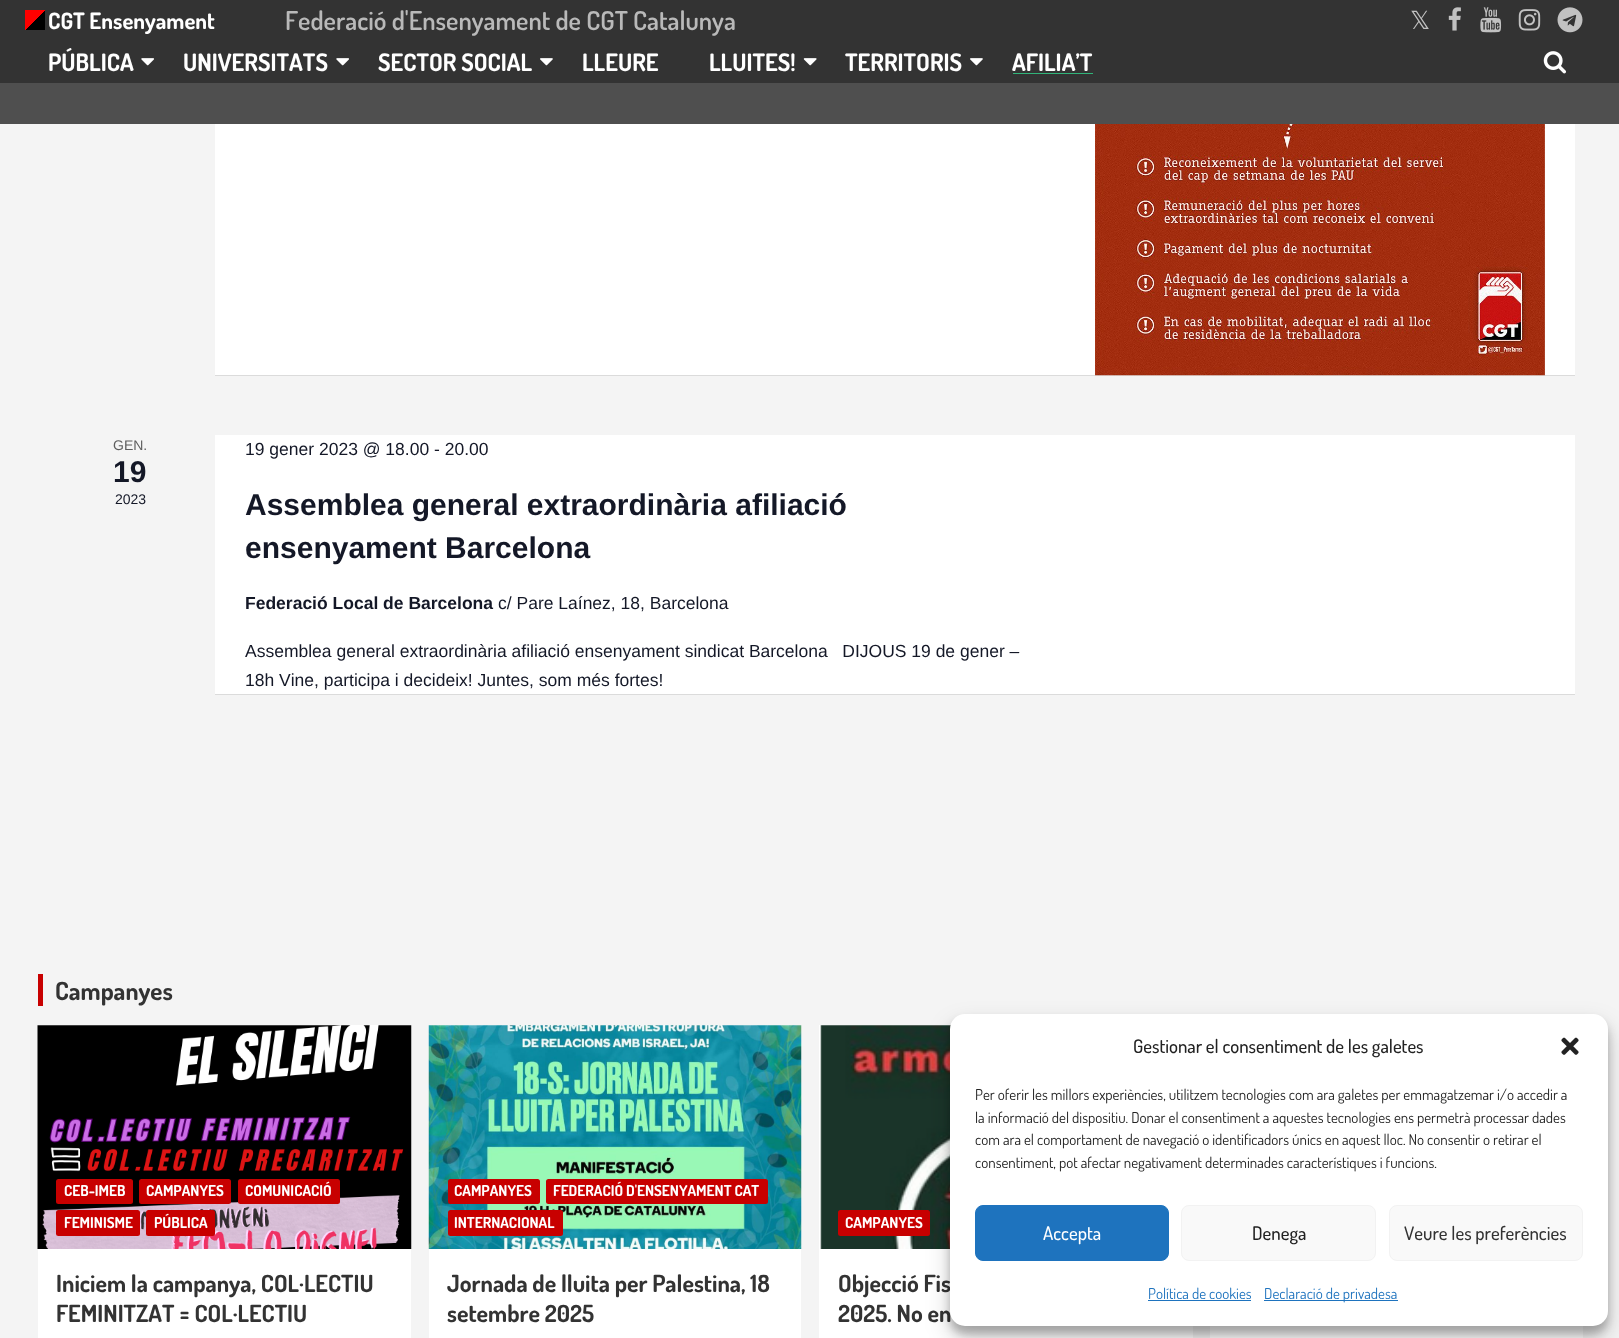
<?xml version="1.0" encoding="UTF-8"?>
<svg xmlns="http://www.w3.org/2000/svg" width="1619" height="1338">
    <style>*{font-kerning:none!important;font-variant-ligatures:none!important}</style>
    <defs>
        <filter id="blur1" x="-50%" y="-200%" width="200%" height="500%"><feGaussianBlur stdDeviation="0.5"/></filter>
        <linearGradient id="g1" gradientUnits="userSpaceOnUse" x1="45" y1="30" x2="25" y2="10"><stop offset="0" stop-color="#000000"/><stop offset="0.5" stop-color="#000000"/><stop offset="0.5" stop-color="#FF0000"/><stop offset="1" stop-color="#FF0000"/></linearGradient>
        <filter id="blur2" x="-50%" y="-200%" width="200%" height="500%"><feGaussianBlur stdDeviation="4"/></filter>
        <filter id="blur3" x="-50%" y="-200%" width="200%" height="500%"><feGaussianBlur stdDeviation="12.5"/></filter>
    </defs>
    <rect width="100%" height="100%" fill="#F4F4F4"/>
    <rect x="215" y="-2" width="1360" height="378" fill="#000000" fill-opacity="0.1" filter="url(#blur1)"/>
    <rect x="0" y="0" width="1619" height="83" fill="#333333"/>
    <rect x="25" y="10" width="20" height="20" fill="url(#g1)"/>
    <text x="48" y="29" font-family="Dosis" font-size="22.5" font-weight="700" fill="#FFFFFF">CGT Ensenyament</text>
    <text x="285" y="30" font-family="Dosis" font-size="26" font-weight="600" fill="#B9B9B9">Federació d'Ensenyament de CGT Catalunya</text>
    <text x="1410" y="29" font-family="DejaVu Sans" font-size="25" fill="#C2C2C2">𝕏</text>
    <image x="1448" y="7" width="13" height="24" href="img_01.png"/>
    <image x="1480" y="7" width="22" height="26" href="img_02.png"/>
    <image x="1518" y="9" width="23" height="22" href="img_03.png"/>
    <image x="1557" y="7" width="26" height="26" href="img_04.png"/>
    <rect x="0" y="83" width="1619" height="41" fill="#4F4F4F"/>
    <text x="48" y="71" font-family="Dosis" font-size="24" font-weight="700" fill="#FFFFFF">PÚBLICA</text>
    <image x="141" y="58" width="13" height="8" href="img_05.png"/>
    <text x="183" y="71" font-family="Dosis" font-size="24" font-weight="700" fill="#FFFFFF">UNIVERSITATS</text>
    <image x="336" y="58" width="13" height="8" href="img_05.png"/>
    <text x="378" y="71" font-family="Dosis" font-size="24" font-weight="700" fill="#FFFFFF">SECTOR SOCIAL</text>
    <image x="540" y="58" width="13" height="8" href="img_06.png"/>
    <text x="582" y="71" font-family="Dosis" font-size="24" font-weight="700" fill="#FFFFFF">LLEURE</text>
    <text x="709" y="71" font-family="Dosis" font-size="24" font-weight="700" fill="#FFFFFF">LLUITES!</text>
    <image x="803" y="58" width="14" height="8" href="img_07.png"/>
    <text x="845" y="71" font-family="Dosis" font-size="24" font-weight="700" fill="#FFFFFF">TERRITORIS</text>
    <image x="970" y="58" width="13" height="8" href="img_06.png"/>
    <text x="1012" y="71" font-family="Dosis" font-size="24" font-weight="700" fill="#FFFFFF">AFILIA’T</text>
    <rect x="1013" y="73" width="80" height="1" fill="#31B379"/>
    <image x="1543" y="51" width="23" height="23" href="img_08.png"/>
    <rect x="215" y="124" width="1360" height="251" fill="#FFFFFF"/>
    <image x="1095" y="124" width="450" height="252" href="img_09.png"/>
    <text x="113" y="450" font-family="Liberation Sans" font-size="14" fill="#5D5D5D">GEN.</text>
    <text x="113" y="482" font-family="Liberation Sans" font-size="30" font-weight="700" fill="#141827">19</text>
    <text x="115" y="504" font-family="Liberation Sans" font-size="14" fill="#141827">2023</text>
    <rect x="215" y="436" width="1360" height="259" fill="#000000" fill-opacity="0.1" filter="url(#blur1)"/>
    <rect x="215" y="435" width="1360" height="259" fill="#FFFFFF"/>
    <text x="245" y="455" font-family="Liberation Sans" font-size="17.5" fill="#141827">19 gener 2023 @ 18.00 - 20.00</text>
    <text font-family="Liberation Sans" font-size="30" font-weight="700" fill="#141827">
        <tspan x="245" y="515">Assemblea general extraordinària afiliació</tspan>
        <tspan x="245" y="558">ensenyament Barcelona</tspan>
    </text>
    <text x="245" y="609" font-family="Liberation Sans" font-size="17.5" font-weight="700" fill="#141827">Federació Local de Barcelona</text>
    <text x="498" y="609" font-family="Liberation Sans" font-size="17.5" fill="#141827">c/ Pare Laínez, 18, Barcelona</text>
    <text font-family="Liberation Sans" font-size="17.5" fill="#141827" xml:space="preserve"><tspan x="245" y="657">Assemblea general extraordinària afiliació ensenyament sindicat Barcelona   DIJOUS 19 de gener –</tspan><tspan x="245" y="686">18h Vine, participa i decideix! Juntes, som més fortes!</tspan></text>
    <rect x="38" y="974" width="5" height="32" fill="#C80000"/>
    <text x="55" y="1000" font-family="Dosis" font-size="25" font-weight="700" fill="#333333">Campanyes</text>
    <rect x="38" y="1025" width="373" height="313" fill="#FFFFFF"/>
    <image x="37" y="1025" width="375" height="224" href="img_10.png"/>
    <rect x="56" y="1179" width="77" height="25" rx="2.5" fill="#C80000"/>
    <text x="64" y="1196" font-family="Dosis" font-size="15" font-weight="700" fill="#FFFFFF">CEB-IMEB</text>
    <rect x="139" y="1179" width="92" height="25" rx="2.5" fill="#C80000"/>
    <text x="146" y="1196" font-family="Dosis" font-size="15" font-weight="700" fill="#FFFFFF">CAMPANYES</text>
    <rect x="238" y="1179" width="102" height="25" rx="2.5" fill="#C80000"/>
    <text x="245" y="1196" font-family="Dosis" font-size="15" font-weight="700" fill="#FFFFFF">COMUNICACIÓ</text>
    <rect x="56" y="1210" width="84" height="26" rx="2.5" fill="#C80000"/>
    <text x="64" y="1228" font-family="Dosis" font-size="15" font-weight="700" fill="#FFFFFF">FEMINISME</text>
    <rect x="146" y="1210" width="69" height="26" rx="2.5" fill="#C80000"/>
    <text x="154" y="1228" font-family="Dosis" font-size="15" font-weight="700" fill="#FFFFFF">PÚBLICA</text>
    <text font-family="Dosis" font-size="23.75" font-weight="700" fill="#333333">
        <tspan x="56" y="1292">Iniciem la campanya, COL·LECTIU</tspan>
        <tspan x="56" y="1322">FEMINITZAT = COL·LECTIU</tspan>
    </text>
    <rect x="429" y="1025" width="372" height="313" fill="#FFFFFF"/>
    <image x="428" y="1025" width="374" height="224" href="img_11.png"/>
    <rect x="448" y="1179" width="92" height="25" rx="2.5" fill="#C80000"/>
    <text x="454" y="1196" font-family="Dosis" font-size="15" font-weight="700" fill="#FFFFFF">CAMPANYES</text>
    <rect x="546" y="1179" width="222" height="25" rx="2.5" fill="#C80000"/>
    <text x="553" y="1196" font-family="Dosis" font-size="15" font-weight="700" fill="#FFFFFF">FEDERACIÓ D'ENSENYAMENT CAT</text>
    <rect x="448" y="1210" width="115" height="26" rx="2.5" fill="#C80000"/>
    <text x="454" y="1228" font-family="Dosis" font-size="15" font-weight="700" fill="#FFFFFF">INTERNACIONAL</text>
    <text font-family="Dosis" font-size="23.75" font-weight="700" fill="#333333">
        <tspan x="447" y="1292">Jornada de lluita per Palestina, 18</tspan>
        <tspan x="447" y="1322">setembre 2025</tspan>
    </text>
    <rect x="819" y="1025" width="374" height="313" fill="#FFFFFF"/>
    <image x="819" y="1025" width="132" height="224" href="img_12.png"/>
    <rect x="838" y="1210" width="92" height="26" rx="2.5" fill="#C80000"/>
    <text x="845" y="1228" font-family="Dosis" font-size="15" font-weight="700" fill="#FFFFFF">CAMPANYES</text>
    <text font-family="Dosis" font-size="23.75" font-weight="700" fill="#333333">
        <tspan x="838" y="1292">Objecció Fis</tspan>
        <tspan x="838" y="1322">2025. No en</tspan>
    </text>
    <rect x="1210" y="1326" width="373" height="12" fill="#FFFFFF"/>
    <rect x="950" y="1021" width="658" height="313" rx="15" fill="#000000" fill-opacity="0.23" filter="url(#blur2)"/>
    <rect x="950" y="1026" width="658" height="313" rx="15" fill="#000000" fill-opacity="0.19" filter="url(#blur3)"/>
    <rect x="950" y="1014" width="658" height="312" rx="15" fill="#FFFFFF"/>
    <text x="1133" y="1053" font-family="Dosis" font-size="18.75" font-weight="500" fill="#222222">Gestionar el consentiment de les galetes</text>
    <image x="1561" y="1037" width="18" height="18" href="img_13.png"/>
    <text font-family="Dosis" font-size="15" fill="#222222">
        <tspan x="975" y="1100">Per oferir les millors experiències, utilitzem tecnologies com ara galetes per emmagatzemar i/o accedir a</tspan>
        <tspan x="975" y="1123">la informació del dispositiu. Donar el consentiment a aquestes tecnologies ens permetrà processar dades</tspan>
        <tspan x="975" y="1145">com ara el comportament de navegació o identificadors únics en aquest lloc. No consentir o retirar el</tspan>
        <tspan x="975" y="1168">consentiment, pot afectar negativament determinades característiques i funcions.</tspan>
    </text>
    <rect x="975.5" y="1205.5" width="193" height="55" rx="7.5" fill="#1E73BE" stroke="#1E73BE"/>
    <text x="1043" y="1240" font-family="Dosis" font-size="18.75" font-weight="500" fill="#FFFFFF">Accepta</text>
    <rect x="1181.5" y="1205.5" width="194" height="55" rx="7.5" fill="#F9F9F9" stroke="#F2F2F2"/>
    <text x="1252" y="1240" font-family="Dosis" font-size="18.75" font-weight="500" fill="#222222">Denega</text>
    <rect x="1389.5" y="1205.5" width="193" height="55" rx="7.5" fill="#F9F9F9" stroke="#F2F2F2"/>
    <text x="1404" y="1240" font-family="Dosis" font-size="18.75" font-weight="500" fill="#333333">Veure les preferències</text>
    <text x="1148" y="1299" font-family="Dosis" font-size="15" fill="#1E73BE">Política de cookies</text>
    <rect x="1148" y="1300" width="103" height="1" fill="#1E73BE"/>
    <rect x="1264" y="1300" width="134" height="1" fill="#1E73BE"/>
    <text x="1264" y="1299" font-family="Dosis" font-size="15" fill="#1E73BE">Declaració de privadesa</text>
</svg>
